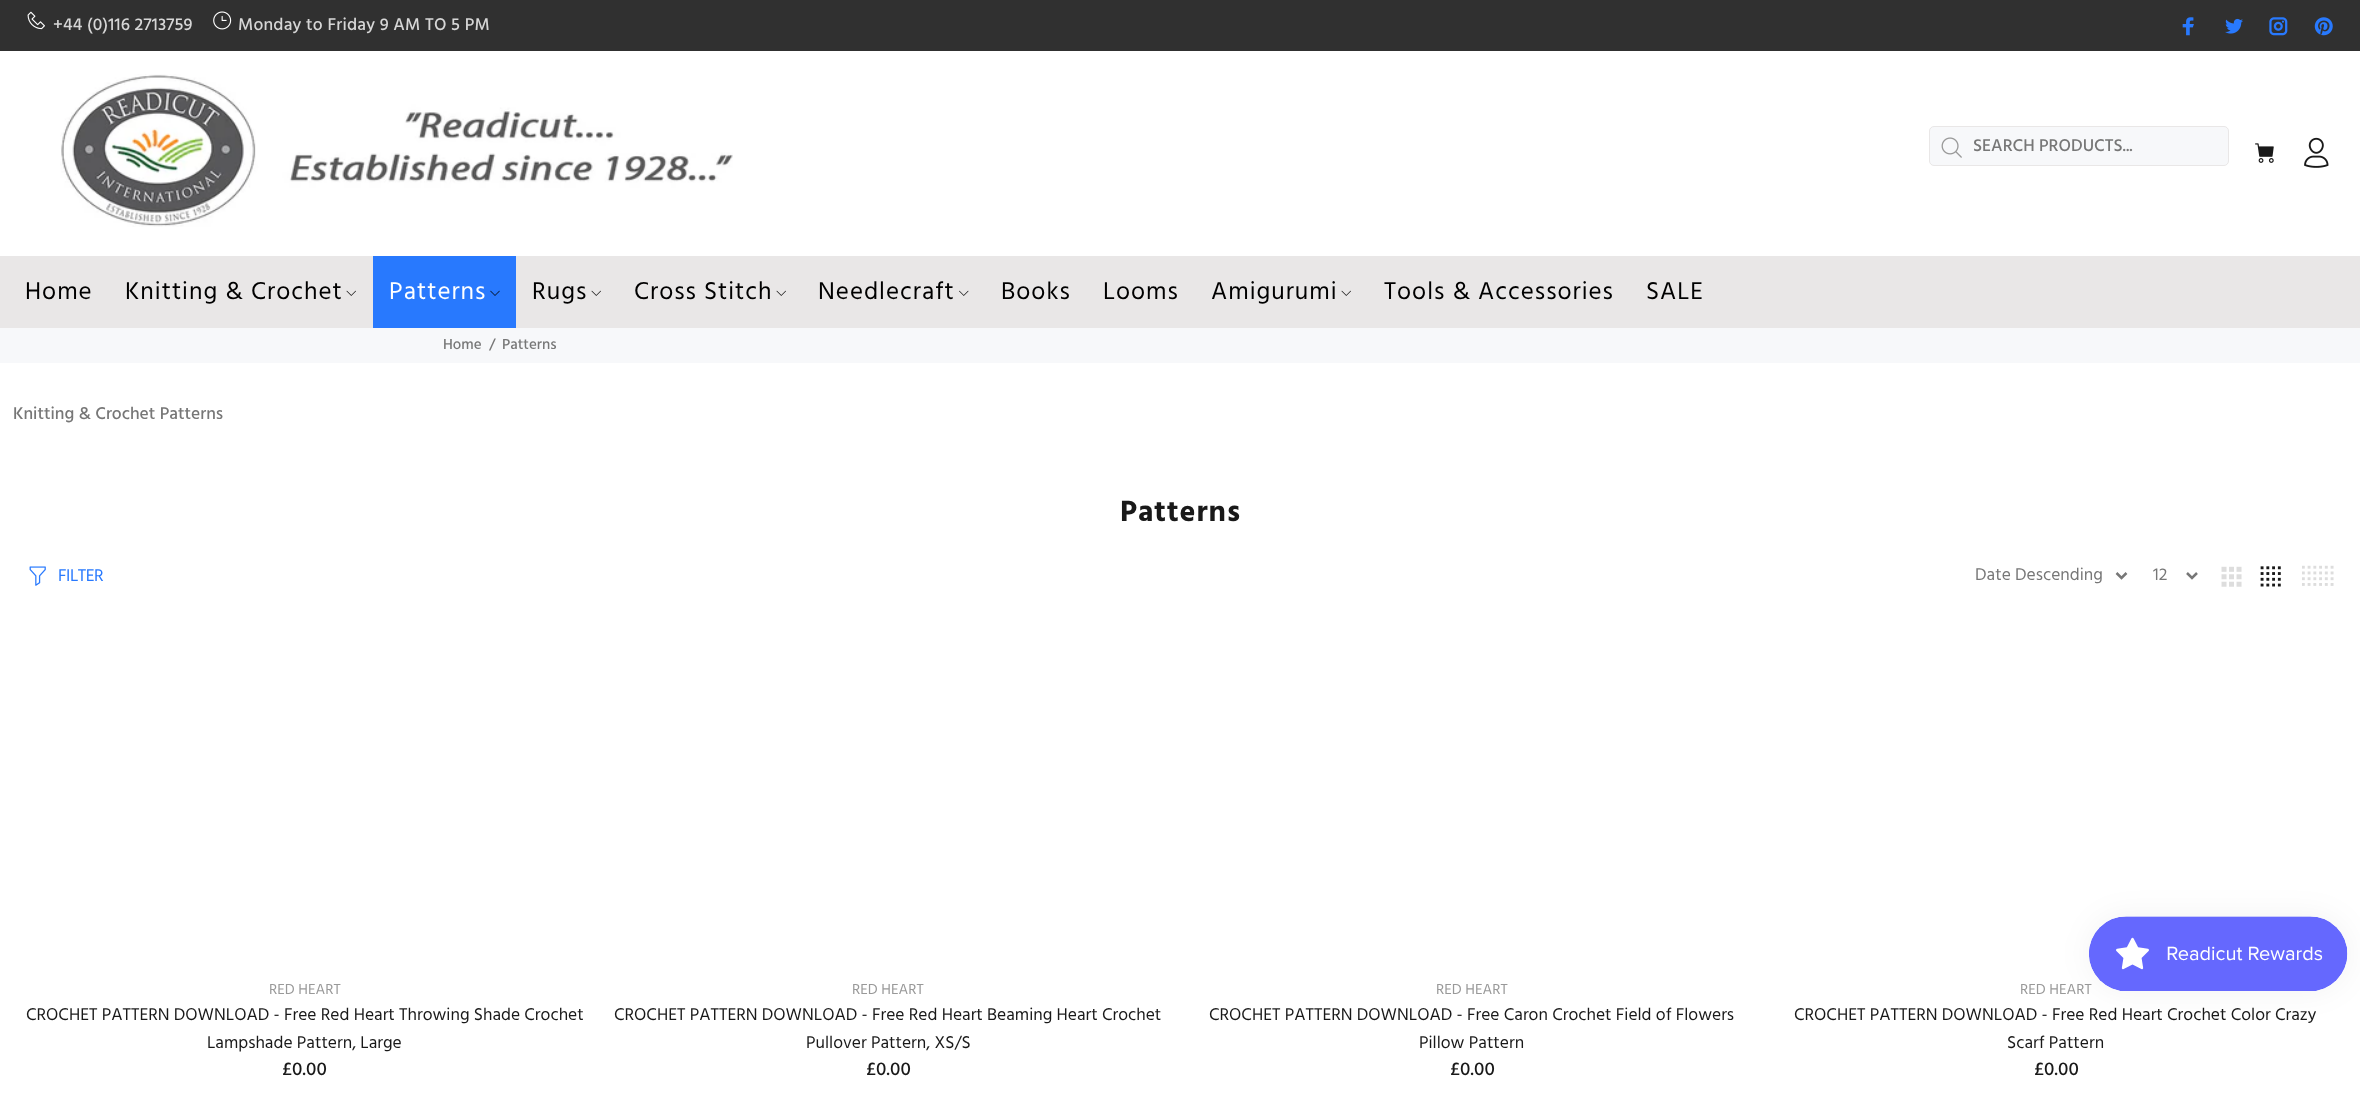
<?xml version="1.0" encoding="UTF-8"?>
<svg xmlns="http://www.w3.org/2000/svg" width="2360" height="1116">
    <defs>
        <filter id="blur1" x="-50%" y="-200%" width="200%" height="500%"><feGaussianBlur stdDeviation="15.5"/></filter>
    </defs>
    <rect width="100%" height="100%" fill="#FFFFFF"/>
    <rect x="0" y="0" width="2360" height="51" fill="#303030"/>
    <image x="27" y="11" width="18" height="19" href="img_01.png"/>
    <text x="53" y="30" font-family="Hind" font-size="17.5" font-weight="500" letter-spacing="0.2" fill="#D6D6D6">+44 (0)116 2713759</text>
    <image x="213" y="11" width="19" height="19" href="img_02.png"/>
    <text x="238" y="30" font-family="Hind" font-size="17.5" font-weight="500" letter-spacing="0.2" fill="#D6D6D6">Monday to Friday 9 AM TO 5 PM</text>
    <image x="2182" y="17" width="12" height="19" href="img_03.png"/>
    <image x="2225" y="18" width="18" height="16" href="img_04.png"/>
    <image x="2269" y="17" width="19" height="19" href="img_05.png"/>
    <image x="2314" y="17" width="19" height="19" href="img_06.png"/>
    <image x="60" y="74" width="673" height="153" href="img_07.png"/>
    <rect x="1929.5" y="126.5" width="299" height="39" rx="4.5" fill="#F7F8FA" stroke="#E9E7E7"/>
    <image x="1941" y="137" width="21" height="21" href="img_08.png"/>
    <text x="1973" y="151" font-family="Hind" font-size="17.5" font-weight="500" fill="#777777">SEARCH PRODUCTS...</text>
    <image x="2255" y="143" width="19" height="20" href="img_09.png"/>
    <image x="2304" y="137" width="25" height="31" href="img_10.png"/>
    <rect x="0" y="256" width="2360" height="72" fill="#E9E7E7"/>
    <text x="25" y="299" font-family="Hind" font-size="25" letter-spacing="1" fill="#000000">Home</text>
    <text x="125" y="299" font-family="Hind" font-size="25" letter-spacing="1" fill="#000000">Knitting &amp; Crochet</text>
    <image x="346" y="290" width="10" height="6" href="img_11.png"/>
    <rect x="373" y="256" width="143" height="72" fill="#2879FE"/>
    <text x="389" y="299" font-family="Hind" font-size="25" letter-spacing="1" fill="#FFFFFF">Patterns</text>
    <image x="490" y="290" width="10" height="6" href="img_12.png"/>
    <text x="532" y="299" font-family="Hind" font-size="25" letter-spacing="1" fill="#000000">Rugs</text>
    <image x="591" y="290" width="10" height="6" href="img_11.png"/>
    <text x="634" y="299" font-family="Hind" font-size="25" letter-spacing="1" fill="#000000">Cross Stitch</text>
    <image x="776" y="290" width="10" height="6" href="img_11.png"/>
    <text x="818" y="299" font-family="Hind" font-size="25" letter-spacing="1" fill="#000000">Needlecraft</text>
    <image x="959" y="290" width="10" height="6" href="img_13.png"/>
    <text x="1001" y="299" font-family="Hind" font-size="25" letter-spacing="1" fill="#000000">Books</text>
    <text x="1103" y="299" font-family="Hind" font-size="25" letter-spacing="1" fill="#000000">Looms</text>
    <text x="1211" y="299" font-family="Hind" font-size="25" letter-spacing="1" fill="#000000">Amigurumi</text>
    <image x="1341" y="290" width="10" height="6" href="img_11.png"/>
    <text x="1384" y="299" font-family="Hind" font-size="25" letter-spacing="1" fill="#000000">Tools &amp; Accessories</text>
    <text x="1646" y="299" font-family="Hind" font-size="25" letter-spacing="1" fill="#000000">SALE</text>
    <rect x="0" y="328" width="2360" height="35" fill="#F7F8FA"/>
    <text x="443" y="349" font-family="Hind" font-size="15" font-weight="500" fill="#777777">Home</text>
    <text x="489" y="349" font-family="Hind" font-size="15" font-weight="500" fill="#777777">/</text>
    <text x="502" y="349" font-family="Hind" font-size="15" font-weight="500" fill="#777777">Patterns</text>
    <text x="13" y="419" font-family="Hind" font-size="17.5" font-weight="500" fill="#777777">Knitting &amp; Crochet Patterns</text>
    <text x="1120" y="521" font-family="Hind" font-size="30" font-weight="700" letter-spacing="1" fill="#191919">Patterns</text>
    <image x="29" y="566" width="17" height="20" href="img_14.png"/>
    <text x="58" y="581" font-family="Hind" font-size="17.5" letter-spacing="-0.5" fill="#2879FE">FILTER</text>
    <path d="M 2116.5 573 L 2121.5 578 L 2126.5 573" fill="none" stroke="#777777" stroke-width="2.5"/>
    <text x="1975" y="580" font-family="Hind" font-size="17.5" fill="#777777">Date Descending</text>
    <path d="M 2187 573 L 2192 578 L 2197 573" fill="none" stroke="#777777" stroke-width="2.5"/>
    <text x="2153" y="580" font-family="Hind" font-size="17.5" fill="#777777">12</text>
    <image x="2221" y="566" width="21" height="21" href="img_15.png"/>
    <image x="2260" y="566" width="21" height="21" href="img_16.png"/>
    <image x="2302" y="565" width="32" height="21" href="img_17.png"/>
    <text x="269" y="994" font-family="Hind" font-size="15" fill="#999999">RED HEART</text>
    <text x="26" y="1020" font-family="Hind" font-size="17.5" fill="#191919">CROCHET PATTERN DOWNLOAD - Free Red Heart Throwing Shade Crochet</text>
    <text x="207" y="1048" font-family="Hind" font-size="17.5" fill="#191919">Lampshade Pattern, Large</text>
    <text x="282" y="1075" font-family="Hind" font-size="19" font-weight="500" fill="#191919">£0.00</text>
    <text x="852" y="994" font-family="Hind" font-size="15" fill="#999999">RED HEART</text>
    <text x="614" y="1020" font-family="Hind" font-size="17.5" fill="#191919">CROCHET PATTERN DOWNLOAD - Free Red Heart Beaming Heart Crochet</text>
    <text x="806" y="1048" font-family="Hind" font-size="17.5" fill="#191919">Pullover Pattern, XS/S</text>
    <text x="866" y="1075" font-family="Hind" font-size="19" font-weight="500" fill="#191919">£0.00</text>
    <text x="1436" y="994" font-family="Hind" font-size="15" fill="#999999">RED HEART</text>
    <text x="1209" y="1020" font-family="Hind" font-size="17.5" fill="#191919">CROCHET PATTERN DOWNLOAD - Free Caron Crochet Field of Flowers</text>
    <text x="1419" y="1048" font-family="Hind" font-size="17.5" fill="#191919">Pillow Pattern</text>
    <text x="1450" y="1075" font-family="Hind" font-size="19" font-weight="500" fill="#191919">£0.00</text>
    <text x="2020" y="994" font-family="Hind" font-size="15" fill="#999999">RED HEART</text>
    <text x="1794" y="1020" font-family="Hind" font-size="17.5" fill="#191919">CROCHET PATTERN DOWNLOAD - Free Red Heart Crochet Color Crazy</text>
    <text x="2007" y="1048" font-family="Hind" font-size="17.5" fill="#191919">Scarf Pattern</text>
    <text x="2034" y="1075" font-family="Hind" font-size="19" font-weight="500" fill="#191919">£0.00</text>
    <rect x="2089" y="916" width="259" height="75" rx="37.5" fill="#000000" fill-opacity="0.05" filter="url(#blur1)"/>
    <image x="2089" y="916" width="259" height="75" href="img_18.png"/>
</svg>
